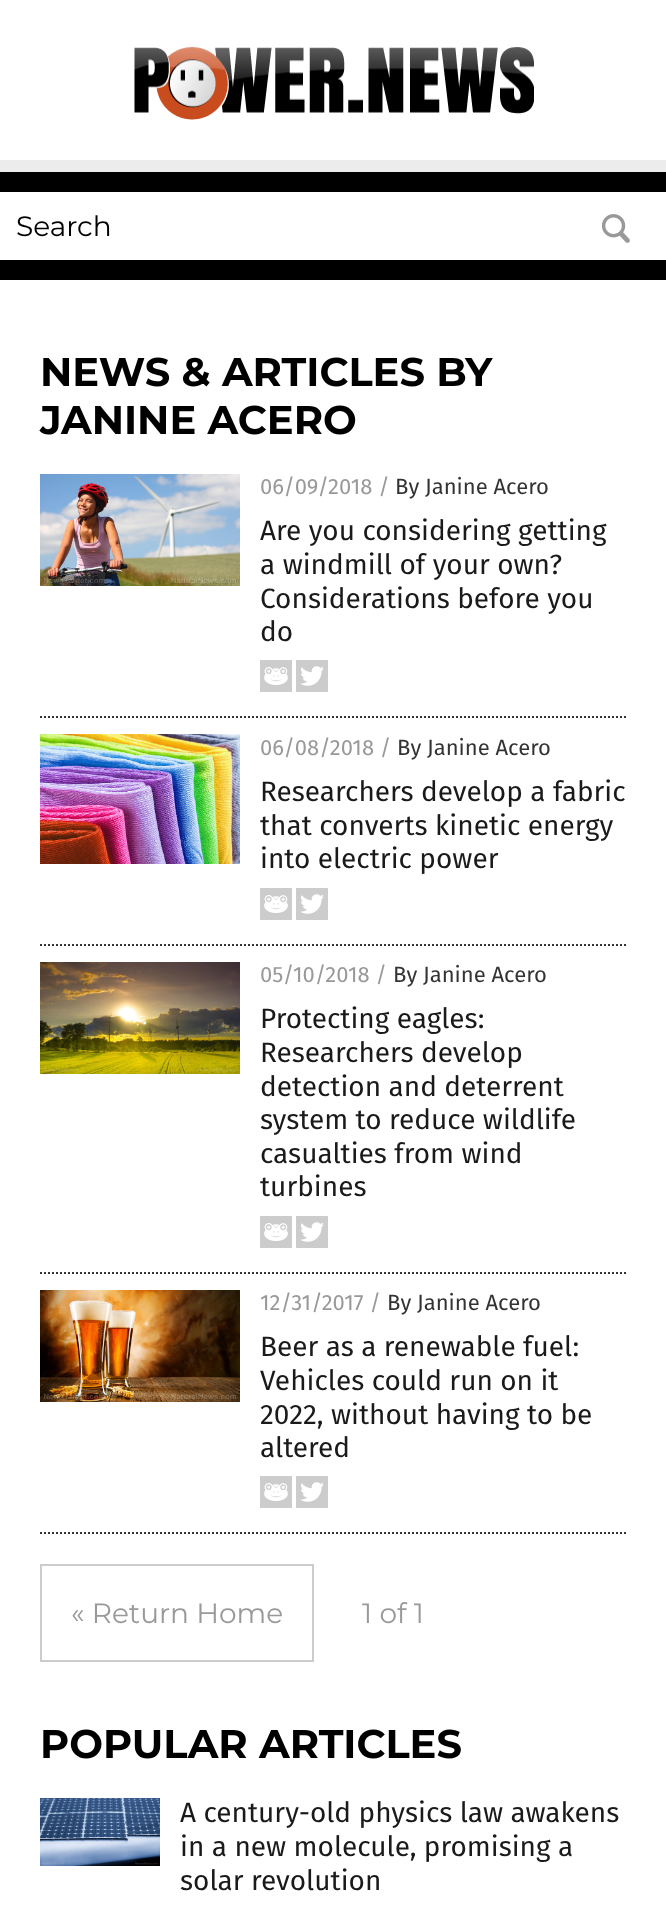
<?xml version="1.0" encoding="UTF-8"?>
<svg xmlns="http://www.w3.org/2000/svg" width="666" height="1909">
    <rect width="100%" height="100%" fill="#000000"/>
    <rect x="0" y="0" width="666" height="160" fill="#FFFFFF"/>
    <image x="134" y="47" width="400" height="73" href="img_01.png"/>
    <rect x="0" y="160" width="666" height="12" fill="#ECECEC"/>
    <rect x="0" y="192" width="666" height="68" fill="#FFFFFF"/>
    <text x="16" y="236" font-family="Montserrat" font-size="28" fill="#000000">Search</text>
    <image x="601" y="214" width="29" height="29" href="img_02.png"/>
    <rect x="0" y="280" width="666" height="1629" fill="#FFFFFF"/>
    <text font-family="Montserrat" font-size="40" font-weight="700" fill="#000000">
        <tspan x="40" y="386">NEWS &amp; ARTICLES BY</tspan>
        <tspan x="40" y="434">JANINE ACERO</tspan>
    </text>
    <path d="M 40 717 H 626" fill="none" stroke="#343434" stroke-width="2" stroke-dasharray="2 2"/>
    <image x="40" y="474" width="200" height="112" href="img_03.png"/>
    <text x="260" y="494" font-family="Fira Sans" font-size="22" fill="#999999">06/09/2018 /</text>
    <text x="395" y="494" font-family="Fira Sans" font-size="22" fill="#333333">By Janine Acero</text>
    <text font-family="Fira Sans" font-size="28" fill="#1A1A1A">
        <tspan x="260" y="540">Are you considering getting</tspan>
        <tspan x="260" y="574">a windmill of your own?</tspan>
        <tspan x="260" y="608">Considerations before you</tspan>
        <tspan x="260" y="641">do</tspan>
    </text>
    <image x="260" y="660" width="32" height="32" href="img_04.png"/>
    <image x="296" y="660" width="32" height="32" href="img_05.png"/>
    <path d="M 40 945 H 626" fill="none" stroke="#343434" stroke-width="2" stroke-dasharray="2 2"/>
    <image x="40" y="734" width="200" height="130" href="img_06.png"/>
    <text x="260" y="755" font-family="Fira Sans" font-size="22" fill="#999999">06/08/2018 /</text>
    <text x="397" y="755" font-family="Fira Sans" font-size="22" fill="#333333">By Janine Acero</text>
    <text font-family="Fira Sans" font-size="28" fill="#1A1A1A">
        <tspan x="260" y="801">Researchers develop a fabric</tspan>
        <tspan x="260" y="835">that converts kinetic energy</tspan>
        <tspan x="260" y="868">into electric power</tspan>
    </text>
    <image x="260" y="888" width="32" height="32" href="img_04.png"/>
    <image x="296" y="888" width="32" height="32" href="img_05.png"/>
    <path d="M 40 1273 H 626" fill="none" stroke="#343434" stroke-width="2" stroke-dasharray="2 2"/>
    <image x="40" y="962" width="200" height="112" href="img_07.png"/>
    <text x="260" y="982" font-family="Fira Sans" font-size="22" fill="#999999">05/10/2018 /</text>
    <text x="393" y="982" font-family="Fira Sans" font-size="22" fill="#333333">By Janine Acero</text>
    <text font-family="Fira Sans" font-size="28" fill="#1A1A1A">
        <tspan x="260" y="1028">Protecting eagles:</tspan>
        <tspan x="260" y="1062">Researchers develop</tspan>
        <tspan x="260" y="1096">detection and deterrent</tspan>
        <tspan x="260" y="1129">system to reduce wildlife</tspan>
        <tspan x="260" y="1163">casualties from wind</tspan>
        <tspan x="260" y="1196">turbines</tspan>
    </text>
    <image x="260" y="1216" width="32" height="32" href="img_04.png"/>
    <image x="296" y="1216" width="32" height="32" href="img_05.png"/>
    <path d="M 40 1533 H 626" fill="none" stroke="#343434" stroke-width="2" stroke-dasharray="2 2"/>
    <image x="40" y="1290" width="200" height="112" href="img_08.png"/>
    <text x="260" y="1310" font-family="Fira Sans" font-size="22" fill="#999999">12/31/2017 /</text>
    <text x="387" y="1310" font-family="Fira Sans" font-size="22" fill="#333333">By Janine Acero</text>
    <text font-family="Fira Sans" font-size="28" fill="#1A1A1A">
        <tspan x="260" y="1356">Beer as a renewable fuel:</tspan>
        <tspan x="260" y="1390">Vehicles could run on it</tspan>
        <tspan x="260" y="1424">2022, without having to be</tspan>
        <tspan x="260" y="1457">altered</tspan>
    </text>
    <image x="260" y="1476" width="32" height="32" href="img_04.png"/>
    <image x="296" y="1476" width="32" height="32" href="img_05.png"/>
    <rect x="41" y="1565" width="272" height="96" fill="none" stroke="#CCCCCC" stroke-width="2"/>
    <text x="71" y="1623" font-family="Montserrat" font-size="28" fill="#999999">« Return Home</text>
    <text x="362" y="1623" font-family="Montserrat" font-size="28" fill="#999999">1 of 1</text>
    <text x="40" y="1758" font-family="Montserrat" font-size="40" font-weight="700" fill="#000000">POPULAR ARTICLES</text>
    <image x="40" y="1798" width="120" height="68" href="img_09.png"/>
    <text font-family="Fira Sans" font-size="28" fill="#1A1A1A">
        <tspan x="180" y="1822">A century-old physics law awakens</tspan>
        <tspan x="180" y="1856">in a new molecule, promising a</tspan>
        <tspan x="180" y="1890">solar revolution</tspan>
    </text>
</svg>
